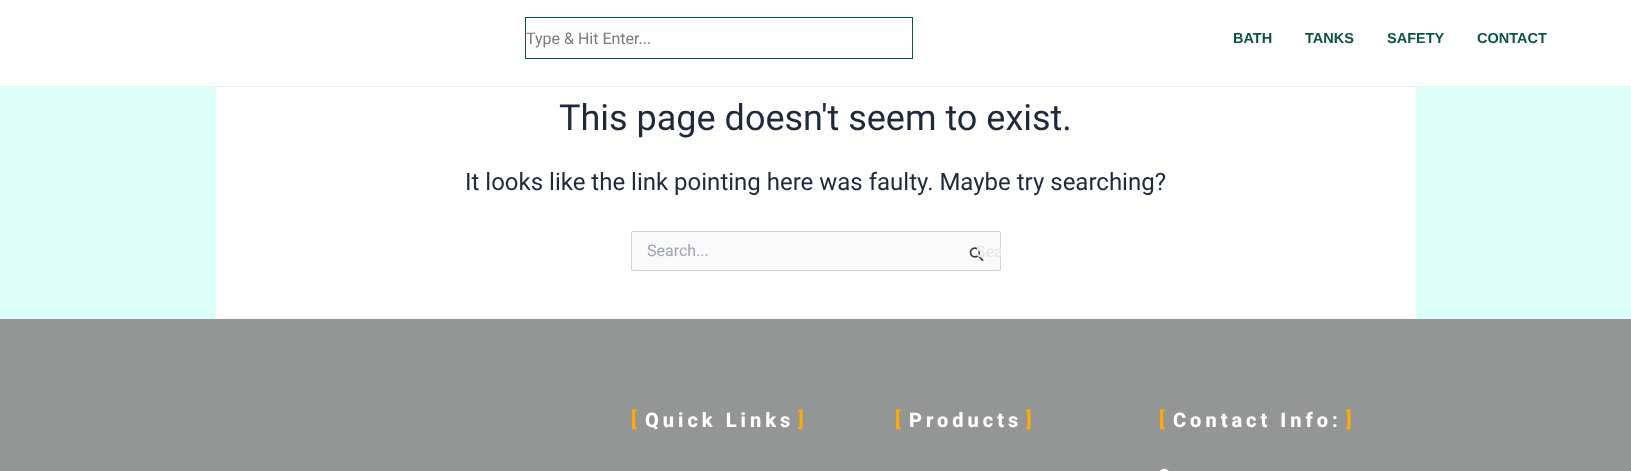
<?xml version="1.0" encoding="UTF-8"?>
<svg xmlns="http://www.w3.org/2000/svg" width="1631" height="471">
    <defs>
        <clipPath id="clip1"><rect x="956" y="231" width="45" height="42" rx="2"/></clipPath>
    </defs>
    <rect width="100%" height="100%" fill="#DCFFF9"/>
    <rect x="0" y="0" width="1631" height="86" fill="#FFFFFF"/>
    <rect x="0" y="86" width="1631" height="1" fill="#EFEFEF"/>
    <rect x="525.5" y="17.5" width="387" height="41" fill="none" stroke="#0B5345"/>
    <text x="526" y="44" font-family="Roboto" font-size="16" fill="#7A7A7A">Type &amp; Hit Enter...</text>
    <text x="1233" y="43" font-family="Liberation Sans" font-size="14.5" font-weight="700" fill="#0B5345">BATH</text>
    <text x="1305" y="43" font-family="Liberation Sans" font-size="14.5" font-weight="700" fill="#0B5345">TANKS</text>
    <text x="1387" y="43" font-family="Liberation Sans" font-size="14.5" font-weight="700" fill="#0B5345">SAFETY</text>
    <text x="1477" y="43" font-family="Liberation Sans" font-size="14.5" font-weight="700" fill="#0B5345">CONTACT</text>
    <rect x="216" y="87" width="1200" height="232" fill="#FFFFFF"/>
    <text x="559" y="130" font-family="Roboto" font-size="36" fill="#1E293B">This page doesn't seem to exist.</text>
    <text x="465" y="190" font-family="Roboto" font-size="24" fill="#1E293B">It looks like the link pointing here was faulty. Maybe try searching?</text>
    <rect x="631.5" y="231.5" width="369" height="39" rx="1.5" fill="#FAFAFA" stroke="#D1D5DB"/>
    <text x="647" y="256" font-family="Roboto" font-size="16" fill="#9CA3AF">Search...</text>
    <image x="969" y="247" width="15" height="15" href="img_01.png"/>
    <g clip-path="url(#clip1)">
        <text x="976" y="257" font-family="Roboto" font-size="16" font-weight="500" fill="#E6E7E7">Sea</text>
    </g>
    <rect x="0" y="319" width="1631" height="152" fill="#949695"/>
    <text x="631" y="426" font-family="Roboto" font-size="20" font-weight="800" letter-spacing="4" fill="#FFAB00">[</text>
    <text x="645" y="427" font-family="Roboto" font-size="20" font-weight="800" letter-spacing="4" fill="#FFFFFF">Quick Links</text>
    <text x="798" y="426" font-family="Roboto" font-size="20" font-weight="800" letter-spacing="4" fill="#FFAB00">]</text>
    <text x="895" y="426" font-family="Roboto" font-size="20" font-weight="800" letter-spacing="4" fill="#FFAB00">[</text>
    <text x="909" y="427" font-family="Roboto" font-size="20" font-weight="800" letter-spacing="4" fill="#FFFFFF">Products</text>
    <text x="1026" y="426" font-family="Roboto" font-size="20" font-weight="800" letter-spacing="4" fill="#FFAB00">]</text>
    <text x="1159" y="426" font-family="Roboto" font-size="20" font-weight="800" letter-spacing="4" fill="#FFAB00">[</text>
    <text x="1173" y="427" font-family="Roboto" font-size="20" font-weight="800" letter-spacing="4" fill="#FFFFFF">Contact Info:</text>
    <text x="1346" y="426" font-family="Roboto" font-size="20" font-weight="800" letter-spacing="4" fill="#FFAB00">]</text>
    <image x="1160" y="468" width="9" height="3" href="img_02.png"/>
</svg>
